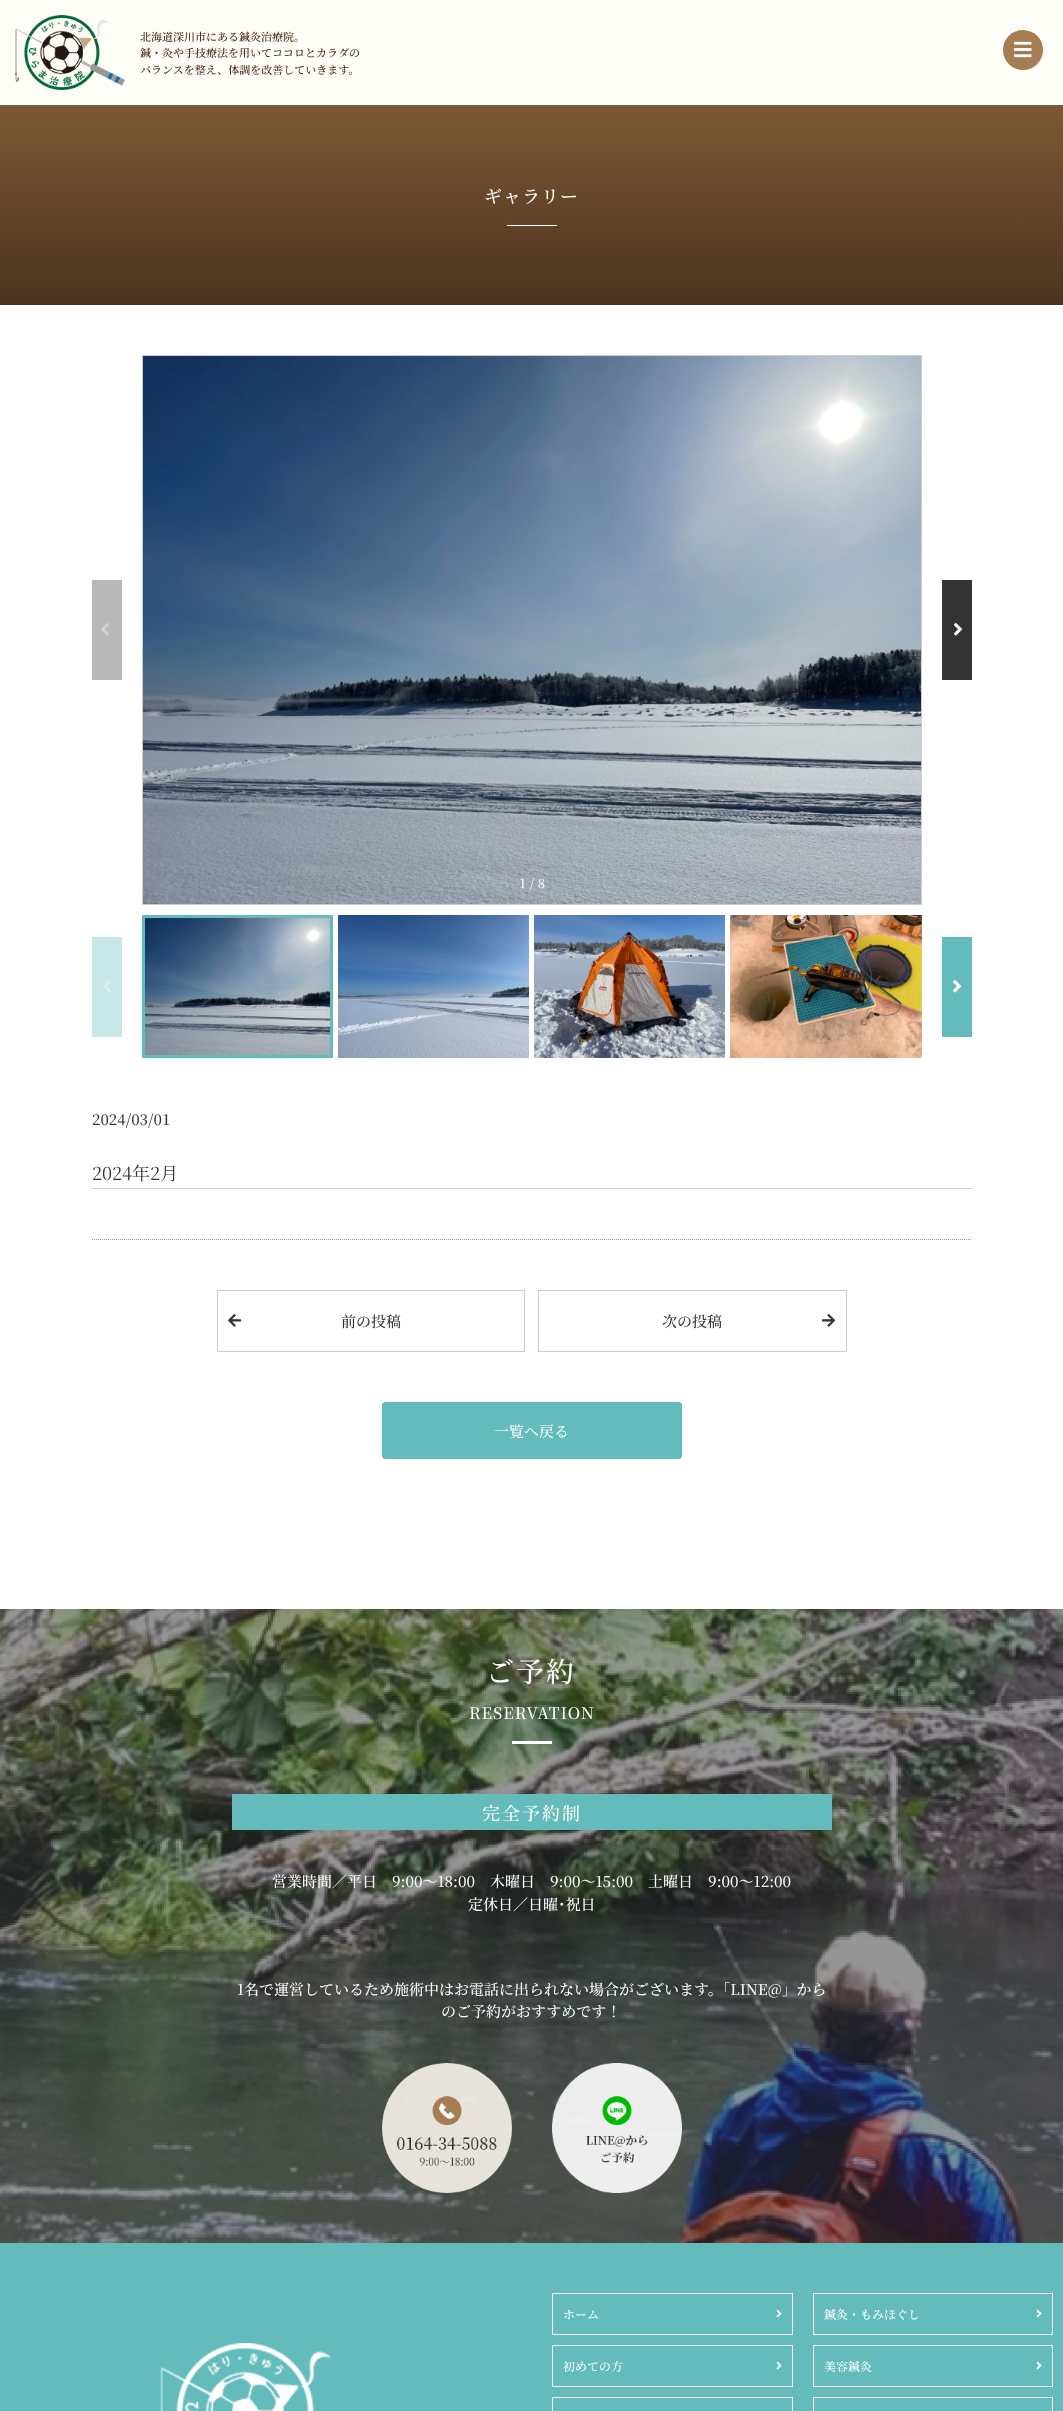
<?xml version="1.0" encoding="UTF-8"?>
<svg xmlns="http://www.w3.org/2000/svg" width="1063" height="2411">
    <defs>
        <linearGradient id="g1" gradientUnits="userSpaceOnUse" x1="532" y1="305" x2="532" y2="105"><stop offset="0" stop-color="#4A3420"/><stop offset="1" stop-color="#7D5833"/></linearGradient>
    </defs>
    <rect width="100%" height="100%" fill="#FFFFFF"/>
    <rect x="0" y="0" width="1063" height="105" fill="#FFFDF8"/>
    <image x="15" y="15" width="110" height="75" href="img_01.png"/>
    <text font-family="Noto Serif JP" font-size="11" font-weight="500" fill="#42210B">
        <tspan x="140" y="41">北海道深川市にある鍼灸治療院。</tspan>
        <tspan x="140" y="57">鍼・灸や手技療法を用いてココロとカラダの</tspan>
        <tspan x="140" y="74">バランスを整え、体調を改善していきます。</tspan>
    </text>
    <circle cx="1023" cy="50" r="20" fill="#A67C52"/>
    <image x="1014" y="41" width="18" height="17" href="img_02.png"/>
    <rect x="0" y="105" width="1063" height="200" fill="url(#g1)"/>
    <text x="484" y="203" font-family="Noto Serif JP" font-size="18" font-weight="500" letter-spacing="1" fill="#FFFFFF">ギャラリー</text>
    <rect x="507" y="225" width="50" height="1" fill="#FFFFFF"/>
    <rect x="92" y="580" width="30" height="100" fill="#B8B8B8"/>
    <image x="101" y="623" width="8" height="13" href="img_03.png"/>
    <rect x="142.5" y="355.5" width="779" height="549" fill="none" stroke="#CCCCCC"/>
    <image x="143" y="356" width="778" height="548" href="img_04.png"/>
    <rect x="942" y="580" width="30" height="100" fill="#333333"/>
    <image x="954" y="623" width="8" height="13" href="img_05.png"/>
    <text x="519" y="888" font-family="Noto Serif JP" font-size="13" font-weight="500" fill="#FFFFFF">1 / 8</text>
    <rect x="92" y="937" width="30" height="100" fill="#C8E7E7"/>
    <image x="103" y="980" width="8" height="13" href="img_06.png"/>
    <image x="145" y="918" width="185" height="137" href="img_07.png"/>
    <rect x="143.5" y="916.5" width="188" height="140" fill="none" stroke="#63BBBB" stroke-width="3"/>
    <image x="338" y="915" width="191" height="143" href="img_08.png"/>
    <image x="534" y="915" width="191" height="143" href="img_09.png"/>
    <image x="730" y="915" width="192" height="143" href="img_10.png"/>
    <rect x="942" y="937" width="30" height="100" fill="#63BBBB"/>
    <image x="953" y="980" width="8" height="13" href="img_11.png"/>
    <text x="92" y="1125" font-family="Noto Serif JP" font-size="15" font-weight="500" fill="#333333">2024/03/01</text>
    <rect x="92" y="1188" width="880" height="1" fill="#CCCCCC"/>
    <text x="92" y="1180" font-family="Noto Serif JP" font-size="18" fill="#333333">2024年2月</text>
    <path d="M 92 1239.5 H 972" fill="none" stroke="#999999" stroke-dasharray="1 1"/>
    <rect x="217.5" y="1290.5" width="307" height="61" fill="none" stroke="#CCCCCC"/>
    <image x="228" y="1314" width="14" height="13" href="img_12.png"/>
    <text x="341" y="1327" font-family="Noto Serif JP" font-size="15" font-weight="500" fill="#333333">前の投稿</text>
    <rect x="538.5" y="1290.5" width="308" height="61" fill="none" stroke="#CCCCCC"/>
    <text x="662" y="1327" font-family="Noto Serif JP" font-size="15" font-weight="500" fill="#333333">次の投稿</text>
    <image x="822" y="1314" width="14" height="13" href="img_13.png"/>
    <rect x="382.5" y="1402.5" width="299" height="56" rx="2.5" fill="#63BBBB" stroke="#63BBBB"/>
    <text x="494" y="1437" font-family="Noto Serif JP" font-size="15" font-weight="500" fill="#FFFFFF">一覧へ戻る</text>
    <image x="0" y="1609" width="1063" height="634" href="img_14.png"/>
    <text x="486" y="1682" font-family="Noto Serif JP" font-size="28" font-weight="500" letter-spacing="2" fill="#FFFFFF">ご予約</text>
    <text x="469" y="1719" font-family="Noto Serif JP" font-size="16" font-weight="500" letter-spacing="1" fill="#FFFFFF">RESERVATION</text>
    <rect x="512" y="1741" width="40" height="3" fill="#FFFFFF"/>
    <rect x="232" y="1794" width="600" height="36" fill="#63BBBB"/>
    <text x="482" y="1820" font-family="Noto Serif JP" font-size="18" font-weight="500" letter-spacing="2" fill="#FFFFFF">完全予約制</text>
    <text x="272" y="1887" font-family="Noto Serif JP" font-size="15" font-weight="500" fill="#FFFFFF">営業時間／平日　9:00～18:00　木曜日　9:00～15:00　土曜日　9:00～12:00</text>
    <text x="468" y="1910" font-family="Noto Serif JP" font-size="15" font-weight="500" fill="#FFFFFF">定休日／日曜･祝日</text>
    <text x="237" y="1995" font-family="Noto Serif JP" font-size="15" font-weight="500" fill="#FFFFFF">1名で運営しているため施術中はお電話に出られない場合がございます。「LINE@」から</text>
    <text x="441" y="2017" font-family="Noto Serif JP" font-size="15" font-weight="500" fill="#FFFFFF">のご予約がおすすめです！</text>
    <image x="382" y="2063" width="130" height="130" href="img_15.png"/>
    <image x="552" y="2063" width="130" height="130" href="img_16.png"/>
    <rect x="0" y="2243" width="1063" height="168" fill="#63BBBB"/>
    <image x="160" y="2343" width="171" height="68" href="img_17.png"/>
    <rect x="552.5" y="2293.5" width="240" height="41" fill="none" stroke="#FFFFFF"/>
    <text x="563" y="2319" font-family="Noto Serif JP" font-size="12" font-weight="500" fill="#FFFFFF">ホーム</text>
    <image x="776" y="2309" width="6" height="9" href="img_18.png"/>
    <rect x="552.5" y="2345.5" width="240" height="41" fill="none" stroke="#FFFFFF"/>
    <text x="563" y="2371" font-family="Noto Serif JP" font-size="12" font-weight="500" fill="#FFFFFF">初めての方</text>
    <image x="776" y="2361" width="6" height="9" href="img_18.png"/>
    <rect x="552.5" y="2397.5" width="240" height="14" fill="none" stroke="#FFFFFF"/>
    <rect x="813.5" y="2293.5" width="239" height="41" fill="none" stroke="#FFFFFF"/>
    <text x="824" y="2319" font-family="Noto Serif JP" font-size="12" font-weight="500" fill="#FFFFFF">鍼灸・もみほぐし</text>
    <image x="1036" y="2309" width="6" height="9" href="img_18.png"/>
    <rect x="813.5" y="2345.5" width="239" height="41" fill="none" stroke="#FFFFFF"/>
    <text x="824" y="2371" font-family="Noto Serif JP" font-size="12" font-weight="500" fill="#FFFFFF">美容鍼灸</text>
    <image x="1036" y="2361" width="6" height="9" href="img_18.png"/>
    <rect x="813.5" y="2397.5" width="239" height="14" fill="none" stroke="#FFFFFF"/>
</svg>
